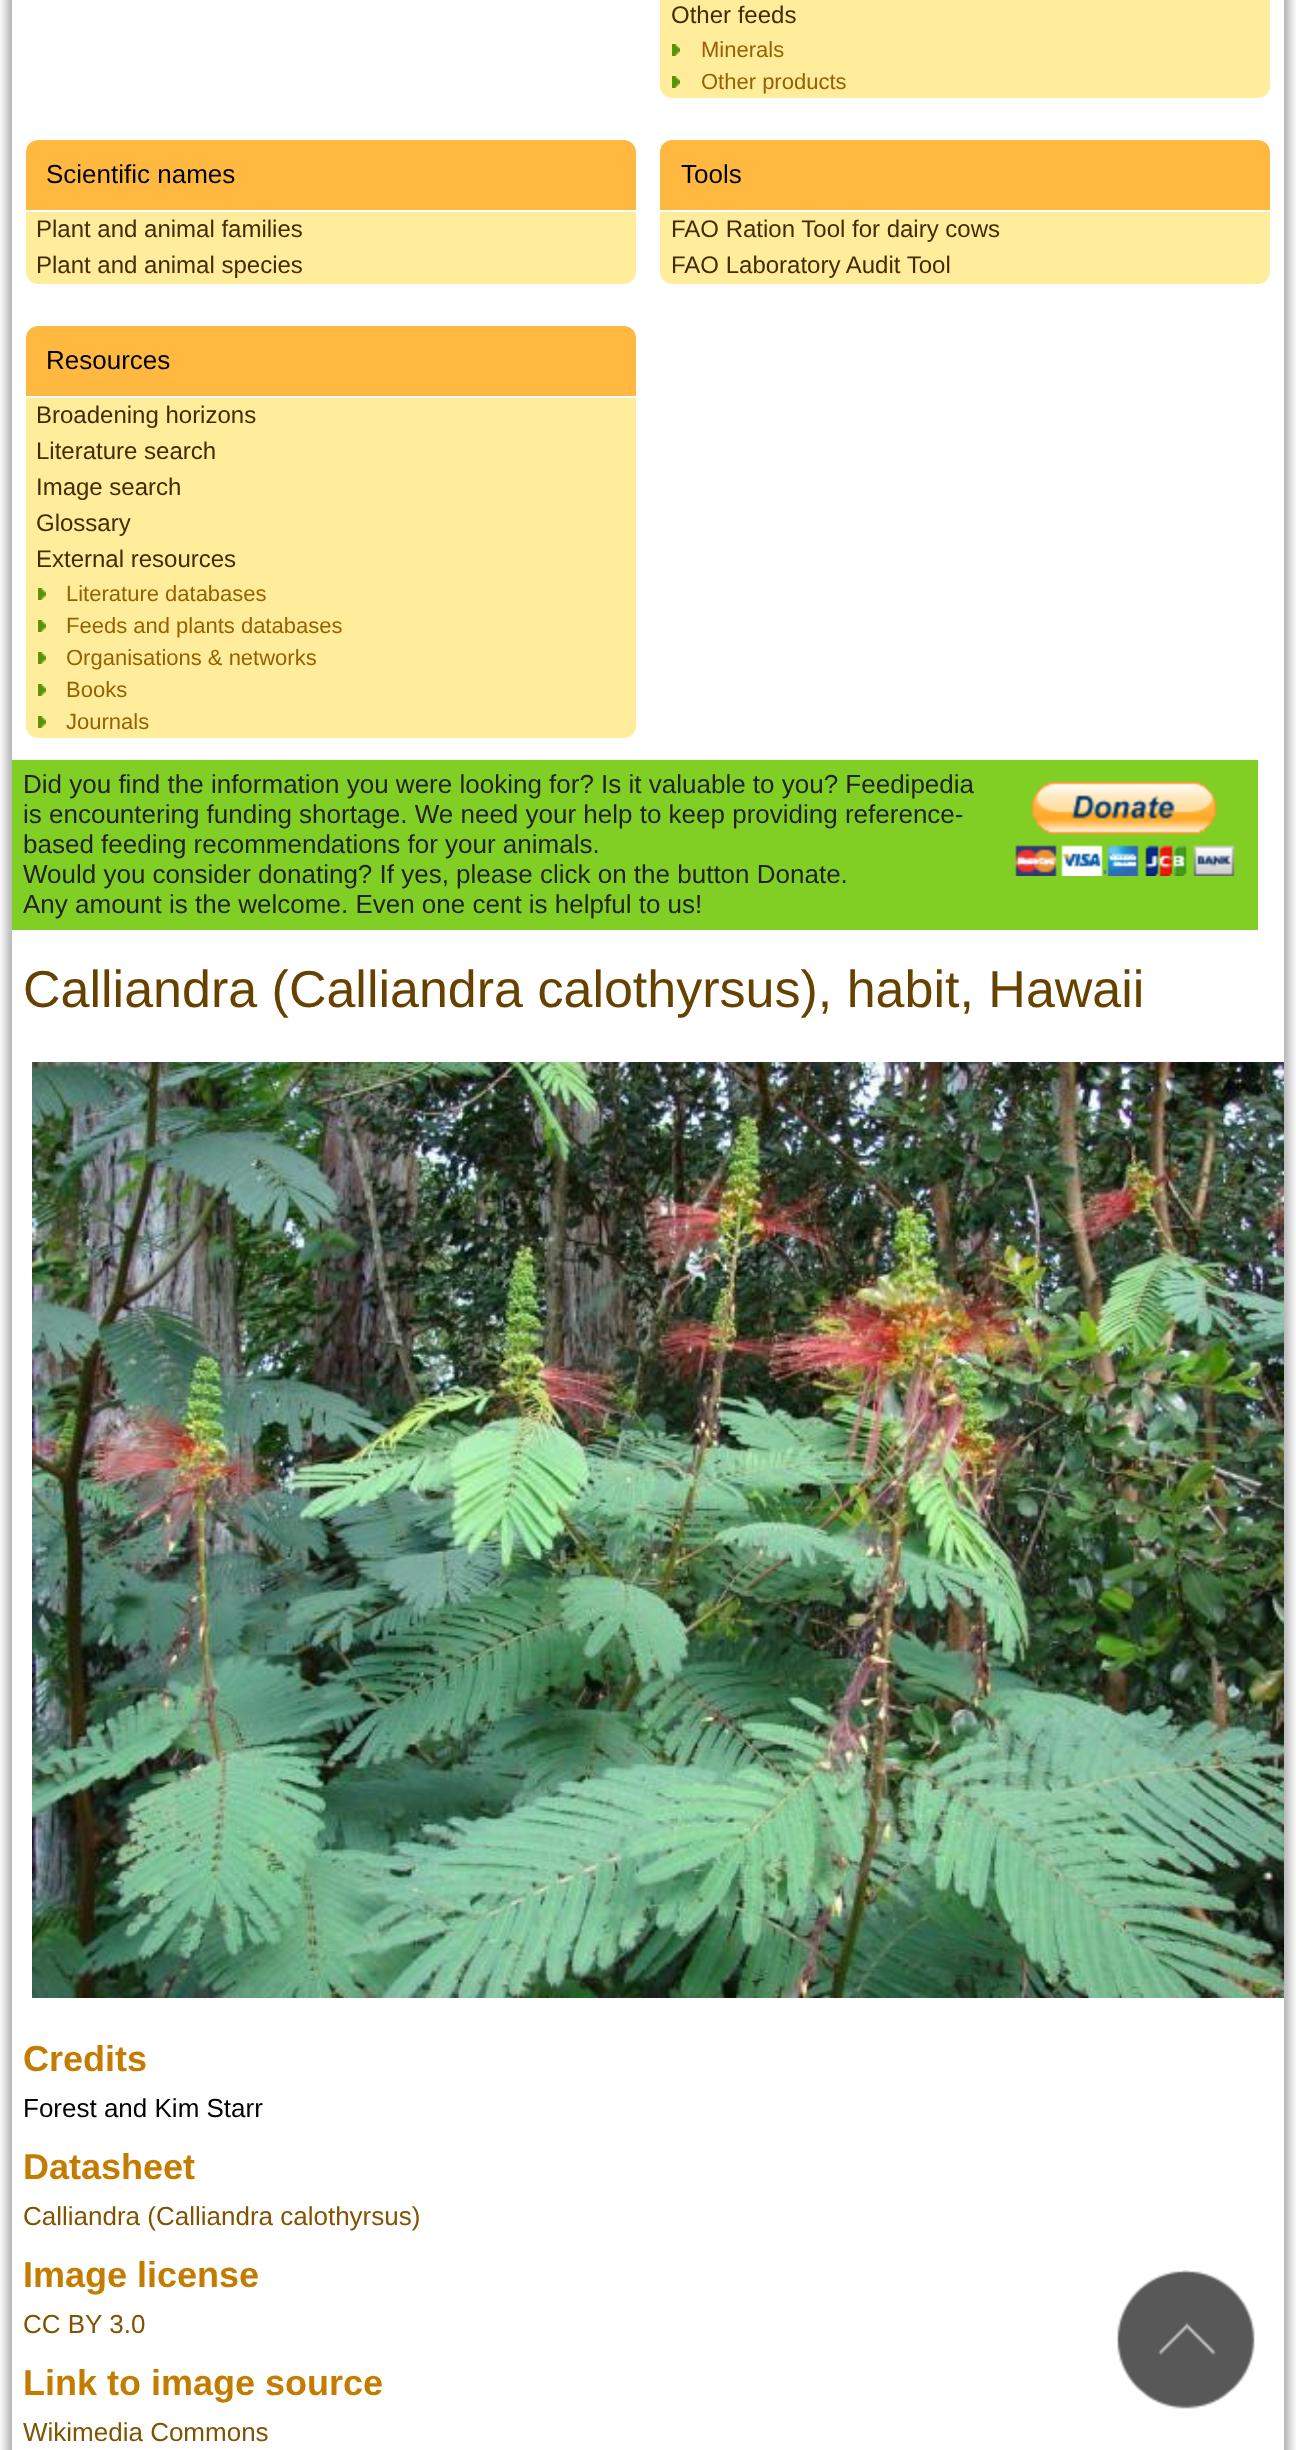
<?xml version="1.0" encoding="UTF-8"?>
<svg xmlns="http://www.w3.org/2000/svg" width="1296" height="2450">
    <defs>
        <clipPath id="clip1"><path d="M 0 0 H 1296 V 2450 H 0 Z M 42 -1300 H 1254 C 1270.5 -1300 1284 -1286.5 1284 -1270 V 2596 C 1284 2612.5 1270.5 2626 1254 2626 H 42 C 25.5 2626 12 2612.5 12 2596 V -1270 C 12 -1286.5 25.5 -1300 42 -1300 Z" clip-rule="evenodd"/></clipPath>
        <filter id="blur1" x="-50%" y="-200%" width="200%" height="500%"><feGaussianBlur stdDeviation="5"/></filter>
    </defs>
    <rect width="100%" height="100%" fill="#FFFFFF"/>
    <g clip-path="url(#clip1)">
        <rect x="6" y="-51" width="1284" height="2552" rx="36" fill="#000000" fill-opacity="0.3" filter="url(#blur1)"/>
    </g>
    <path d="M 660 -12 H 1270 V 86 C 1270 92.5 1264.5 98 1258 98 H 672 C 665.5 98 660 92.5 660 86 Z" fill="#FFED9B"/>
    <text x="671" y="23" font-family="Liberation Sans" font-size="24" fill="#432B00">Other feeds</text>
    <image x="672" y="44" width="8" height="12" href="img_01.png"/>
    <text x="701" y="57" font-family="Liberation Sans" font-size="22" fill="#976000">Minerals</text>
    <image x="672" y="76" width="8" height="12" href="img_01.png"/>
    <text x="701" y="89" font-family="Liberation Sans" font-size="22" fill="#976000">Other products</text>
    <path d="M 38 140 H 624 C 630.5 140 636 145.5 636 152 V 210 H 26 V 152 C 26 145.5 31.5 140 38 140 Z" fill="#FFB941"/>
    <text x="46" y="183" font-family="Liberation Sans" font-size="26" fill="#000000">Scientific names</text>
    <path d="M 26 212 H 636 V 272 C 636 278.5 630.5 284 624 284 H 38 C 31.5 284 26 278.5 26 272 Z" fill="#FFED9B"/>
    <text font-family="Liberation Sans" font-size="24" fill="#432B00">
        <tspan x="36" y="237">Plant and animal families</tspan>
        <tspan x="36" y="273">Plant and animal species</tspan>
    </text>
    <path d="M 672 140 H 1258 C 1264.5 140 1270 145.5 1270 152 V 210 H 660 V 152 C 660 145.5 665.5 140 672 140 Z" fill="#FFB941"/>
    <text x="681" y="183" font-family="Liberation Sans" font-size="26" fill="#000000">Tools</text>
    <path d="M 660 212 H 1270 V 272 C 1270 278.5 1264.5 284 1258 284 H 672 C 665.5 284 660 278.5 660 272 Z" fill="#FFED9B"/>
    <text font-family="Liberation Sans" font-size="24" fill="#432B00">
        <tspan x="671" y="237">FAO Ration Tool for dairy cows</tspan>
        <tspan x="671" y="273">FAO Laboratory Audit Tool</tspan>
    </text>
    <path d="M 38 326 H 624 C 630.5 326 636 331.5 636 338 V 396 H 26 V 338 C 26 331.5 31.5 326 38 326 Z" fill="#FFB941"/>
    <text x="46" y="369" font-family="Liberation Sans" font-size="26" fill="#000000">Resources</text>
    <path d="M 26 398 H 636 V 726 C 636 732.5 630.5 738 624 738 H 38 C 31.5 738 26 732.5 26 726 Z" fill="#FFED9B"/>
    <text font-family="Liberation Sans" font-size="24" fill="#432B00">
        <tspan x="36" y="423">Broadening horizons</tspan>
        <tspan x="36" y="459">Literature search</tspan>
        <tspan x="36" y="495">Image search</tspan>
        <tspan x="36" y="531">Glossary</tspan>
        <tspan x="36" y="567">External resources</tspan>
    </text>
    <image x="38" y="588" width="8" height="12" href="img_01.png"/>
    <text x="66" y="601" font-family="Liberation Sans" font-size="22" fill="#976000">Literature databases</text>
    <image x="38" y="620" width="8" height="12" href="img_01.png"/>
    <text x="66" y="633" font-family="Liberation Sans" font-size="22" fill="#976000">Feeds and plants databases</text>
    <image x="38" y="652" width="8" height="12" href="img_01.png"/>
    <text x="66" y="665" font-family="Liberation Sans" font-size="22" fill="#976000">Organisations &amp; networks</text>
    <image x="38" y="684" width="8" height="12" href="img_01.png"/>
    <text x="66" y="697" font-family="Liberation Sans" font-size="22" fill="#976000">Books</text>
    <image x="38" y="716" width="8" height="12" href="img_01.png"/>
    <text x="66" y="729" font-family="Liberation Sans" font-size="22" fill="#976000">Journals</text>
    <rect x="12" y="760" width="1246" height="170" fill="#81CF25"/>
    <text font-family="Liberation Sans" font-size="26" fill="#222222">
        <tspan x="23" y="793">Did you find the information you were looking for? Is it valuable to you? Feedipedia</tspan>
        <tspan x="23" y="823">is encountering funding shortage. We need your help to keep providing reference-</tspan>
        <tspan x="23" y="853">based feeding recommendations for your animals.</tspan>
        <tspan x="23" y="883">Would you consider donating? If yes, please click on the button Donate.</tspan>
        <tspan x="23" y="913">Any amount is the welcome. Even one cent is helpful to us!</tspan>
    </text>
    <image x="1015" y="782" width="220" height="94" href="img_02.png"/>
    <text x="23" y="1007" font-family="Liberation Sans" font-size="52" fill="#664100">Calliandra (Calliandra calothyrsus), habit, Hawaii</text>
    <image x="32" y="1062" width="1252" height="936" href="img_03.png"/>
    <text x="23" y="2071" font-family="Liberation Sans" font-size="36" font-weight="700" fill="#C47C00">Credits</text>
    <text x="23" y="2117" font-family="Liberation Sans" font-size="26" fill="#000000">Forest and Kim Starr</text>
    <text x="23" y="2179" font-family="Liberation Sans" font-size="36" font-weight="700" fill="#C47C00">Datasheet</text>
    <text x="23" y="2225" font-family="Liberation Sans" font-size="26" fill="#815200">Calliandra (Calliandra calothyrsus)</text>
    <text x="23" y="2287" font-family="Liberation Sans" font-size="36" font-weight="700" fill="#C47C00">Image license</text>
    <text x="23" y="2333" font-family="Liberation Sans" font-size="26" fill="#815200">CC BY 3.0</text>
    <text x="23" y="2395" font-family="Liberation Sans" font-size="36" font-weight="700" fill="#C47C00">Link to image source</text>
    <text x="23" y="2441" font-family="Liberation Sans" font-size="26" fill="#815200">Wikimedia Commons</text>
    <image x="1116" y="2270" width="139" height="139" href="img_04.png"/>
</svg>
